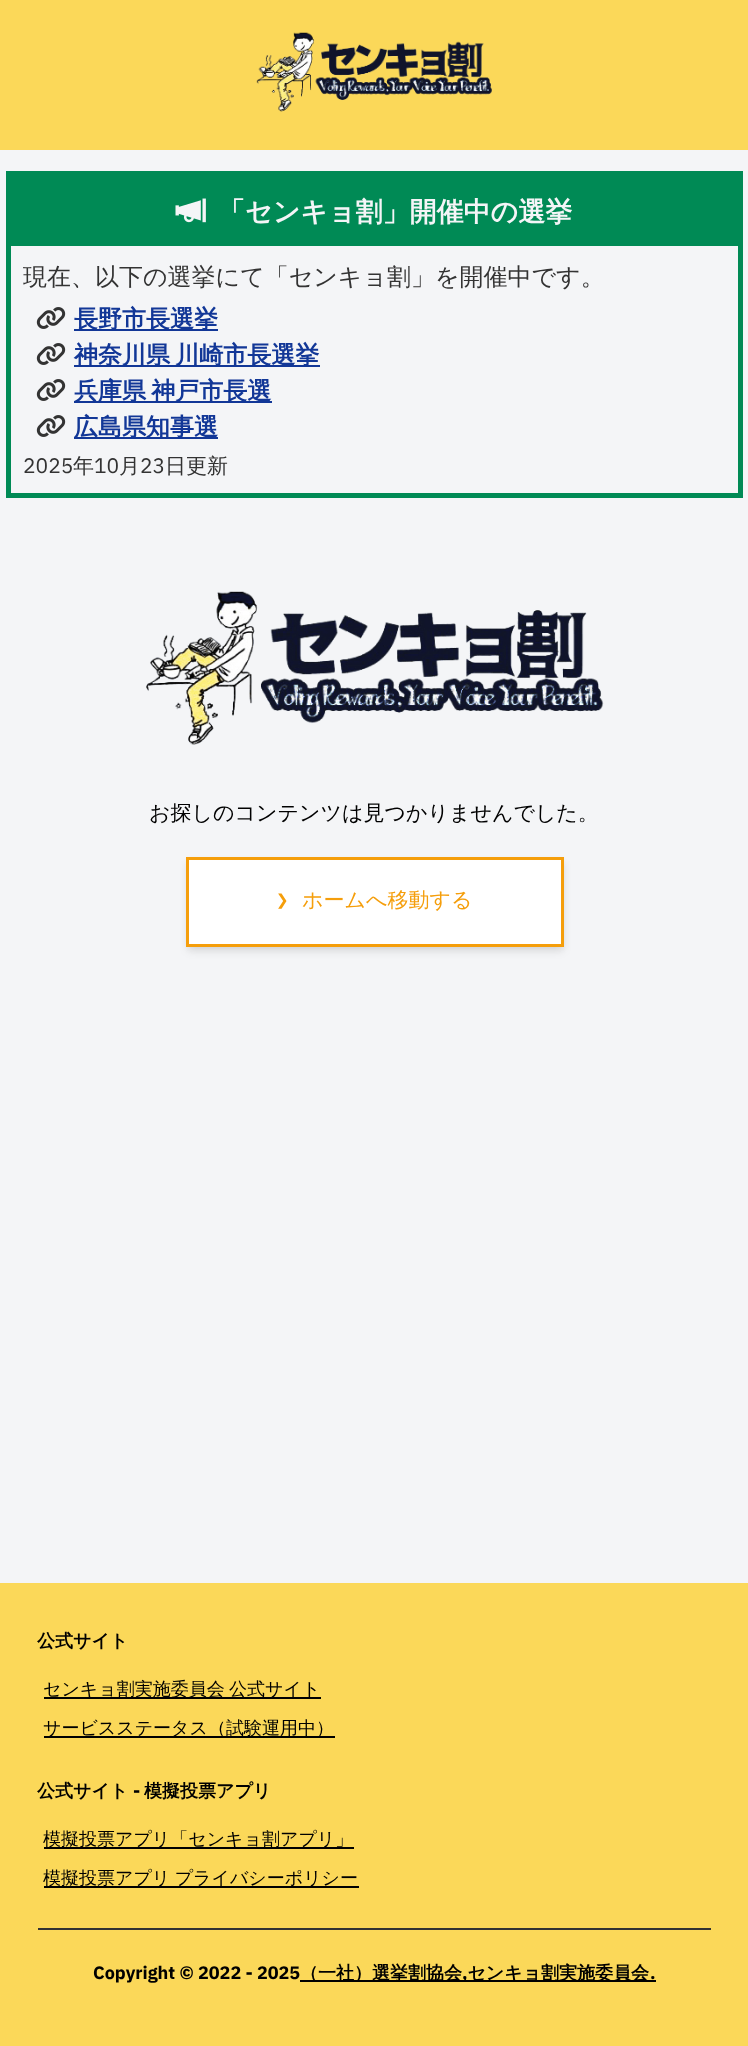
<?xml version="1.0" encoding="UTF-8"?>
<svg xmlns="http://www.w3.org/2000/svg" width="748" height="2046">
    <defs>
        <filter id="blur1" x="-50%" y="-200%" width="200%" height="500%"><feGaussianBlur stdDeviation="3"/></filter>
        <filter id="blur2" x="-50%" y="-200%" width="200%" height="500%"><feGaussianBlur stdDeviation="4.5"/></filter>
    </defs>
    <rect width="100%" height="100%" fill="#F4F5F7"/>
    <rect x="0" y="0" width="748" height="150" fill="#FBD859"/>
    <image x="256" y="32" width="236" height="80" href="img_01.png"/>
    <rect x="8.5" y="173.5" width="732" height="322" fill="none" stroke="#008A55" stroke-width="5"/>
    <rect x="11" y="176" width="727" height="70" fill="#008A55"/>
    <image x="175" y="198" width="31" height="25" href="img_02.png"/>
    <text x="218" y="221" font-family="WenQuanYi Zen Hei" font-size="27" font-weight="700" fill="#F4F5F7">「センキョ割」開催中の選挙</text>
    <text x="23" y="285" font-family="WenQuanYi Zen Hei" font-size="24" font-weight="500" fill="#333333">現在、以下の選挙にて「センキョ割」を開催中です。</text>
    <image x="36" y="307" width="30" height="22" href="img_03.png"/>
    <rect x="74" y="329" width="144" height="2" fill="#123797"/>
    <text x="74" y="327" font-family="WenQuanYi Zen Hei" font-size="24" font-weight="700" fill="#123797">長野市長選挙</text>
    <image x="36" y="343" width="30" height="22" href="img_03.png"/>
    <rect x="74" y="365" width="246" height="2" fill="#123797"/>
    <text x="74" y="363" word-spacing="-2" font-family="WenQuanYi Zen Hei" font-size="24" font-weight="700" fill="#123797">神奈川県 川崎市長選挙</text>
    <image x="36" y="379" width="30" height="22" href="img_03.png"/>
    <rect x="74" y="401" width="198" height="2" fill="#123797"/>
    <text x="74" y="399" word-spacing="-2" font-family="WenQuanYi Zen Hei" font-size="24" font-weight="700" fill="#123797">兵庫県 神戸市長選</text>
    <image x="36" y="415" width="30" height="22" href="img_03.png"/>
    <rect x="74" y="437" width="144" height="2" fill="#123797"/>
    <text x="74" y="435" font-family="WenQuanYi Zen Hei" font-size="24" font-weight="700" fill="#123797">広島県知事選</text>
    <text x="23" y="473" font-family="IBM Plex Sans" font-size="21" fill="#333333">2025</text>
    <text x="73" y="473" font-family="WenQuanYi Zen Hei" font-size="21" font-weight="500" fill="#333333">年</text>
    <text x="94" y="473" font-family="IBM Plex Sans" font-size="21" fill="#333333">10</text>
    <text x="119" y="473" font-family="WenQuanYi Zen Hei" font-size="21" font-weight="500" fill="#333333">月</text>
    <text x="140" y="473" font-family="IBM Plex Sans" font-size="21" fill="#333333">23</text>
    <text x="165" y="473" font-family="WenQuanYi Zen Hei" font-size="21" font-weight="500" fill="#333333">日更新</text>
    <image x="146" y="591" width="458" height="154" href="img_04.png"/>
    <text x="149" y="820" font-family="WenQuanYi Zen Hei" font-size="21" font-weight="500" fill="#000000">お探しのコンテンツは見つかりませんでした。</text>
    <rect x="188" y="861" width="375" height="87" fill="#000000" fill-opacity="0.06" filter="url(#blur1)"/>
    <rect x="188" y="864" width="375" height="87" fill="#000000" fill-opacity="0.1" filter="url(#blur2)"/>
    <rect x="187.5" y="858.5" width="375" height="87" fill="#FFFFFF" stroke="#F59E0B" stroke-width="3"/>
    <text x="276" y="907" font-family="DejaVu Sans Mono" font-size="21" fill="#F59E0B">❯</text>
    <text x="302" y="907" font-family="WenQuanYi Zen Hei" font-size="21" font-weight="500" fill="#F59E0B">ホームへ移動する</text>
    <rect x="0" y="1583" width="748" height="463" fill="#FBD859"/>
    <text x="37" y="1647" font-family="WenQuanYi Zen Hei" font-size="18" font-weight="700" fill="#000000">公式サイト</text>
    <rect x="44" y="1697" width="277" height="2" fill="#000000"/>
    <text x="43" y="1695" word-spacing="-1" font-family="WenQuanYi Zen Hei" font-size="18" font-weight="500" fill="#000000">センキョ割実施委員会 公式サイト</text>
    <rect x="44" y="1736" width="291" height="2" fill="#000000"/>
    <text x="43" y="1734" font-family="WenQuanYi Zen Hei" font-size="18" font-weight="500" fill="#000000">サービスステータス（試験運用中）</text>
    <text x="37" y="1797" font-family="WenQuanYi Zen Hei" font-size="18" font-weight="700" fill="#000000">公式サイト</text>
    <text x="133" y="1797" font-family="IBM Plex Sans" font-size="18" font-weight="700" fill="#000000">-</text>
    <text x="144" y="1797" font-family="WenQuanYi Zen Hei" font-size="18" font-weight="700" fill="#000000">模擬投票アプリ</text>
    <rect x="44" y="1847" width="310" height="2" fill="#000000"/>
    <text x="43" y="1845" font-family="WenQuanYi Zen Hei" font-size="18" font-weight="500" fill="#000000">模擬投票アプリ「センキョ割アプリ」</text>
    <rect x="44" y="1886" width="315" height="2" fill="#000000"/>
    <text x="43" y="1884" word-spacing="-1" font-family="WenQuanYi Zen Hei" font-size="18" font-weight="500" fill="#000000">模擬投票アプリ プライバシーポリシー</text>
    <rect x="38" y="1928" width="673" height="2" fill="#333333"/>
    <text x="93" y="1979" font-family="IBM Plex Sans" font-size="18" font-weight="700" fill="#000000">Copyright © 2022 - 2025</text>
    <rect x="300" y="1980" width="356" height="2" fill="#000000"/>
    <text x="300" y="1979" font-family="WenQuanYi Zen Hei" font-size="18" font-weight="700" fill="#000000">（一社）選挙割協会 センキョ割実施委員会</text>
    <text x="462" y="1979" font-family="IBM Plex Sans" font-size="18" font-weight="700" fill="#000000">,</text>
    <text x="650" y="1979" font-family="IBM Plex Sans" font-size="18" font-weight="700" fill="#000000">.</text>
</svg>
